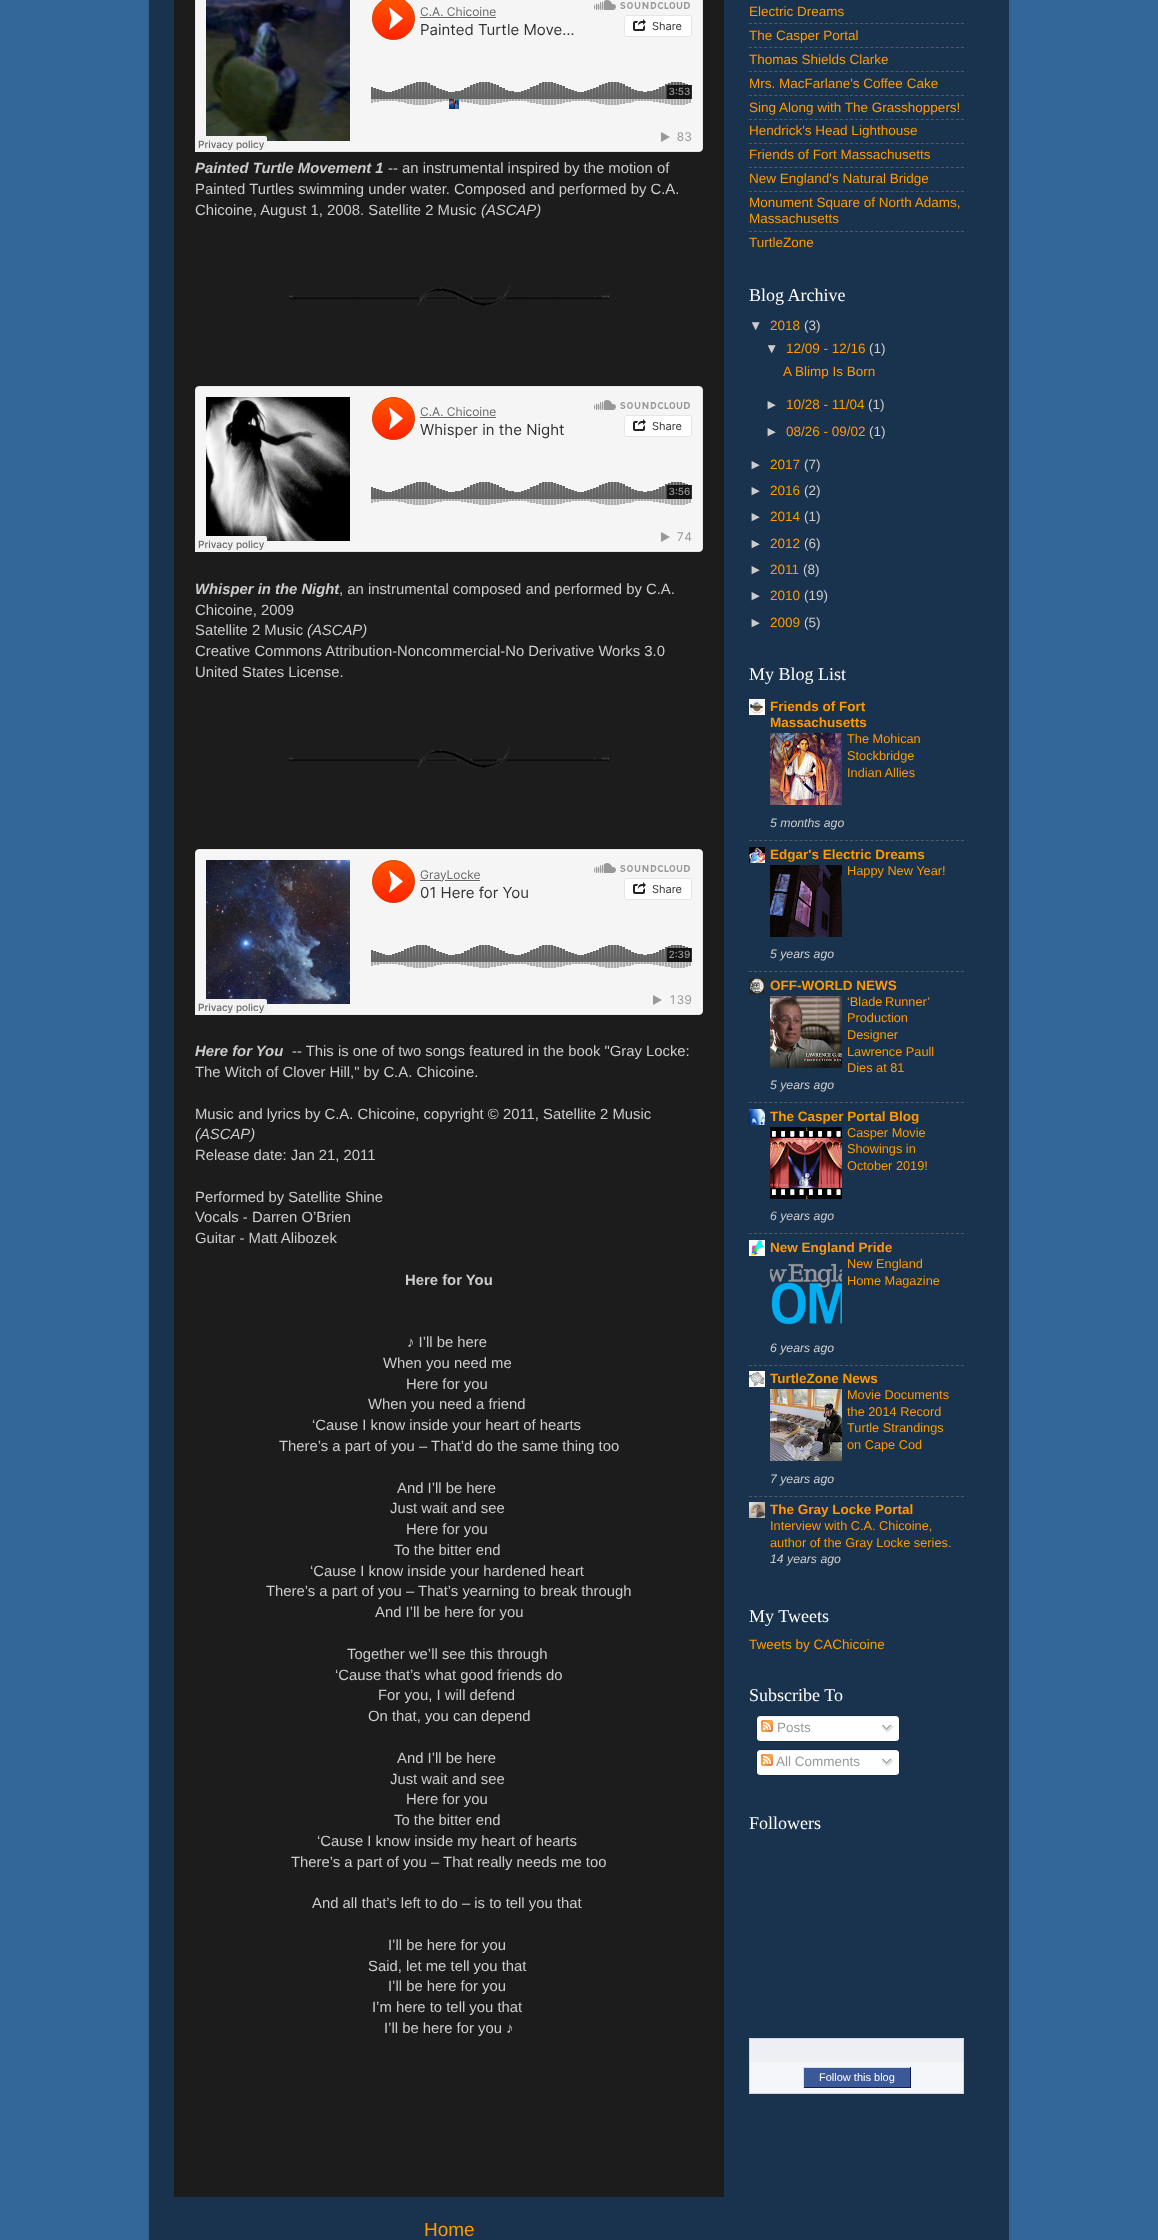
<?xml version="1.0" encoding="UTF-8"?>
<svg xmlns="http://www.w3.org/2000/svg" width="1158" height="2240">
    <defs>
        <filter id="blur1" x="-50%" y="-200%" width="200%" height="500%"><feGaussianBlur stdDeviation="1.5"/></filter>
    </defs>
    <rect width="100%" height="100%" fill="#336699"/>
    <rect x="149" y="-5" width="860" height="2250" fill="#000000" fill-opacity="0.15" filter="url(#blur1)"/>
    <rect x="149" y="0" width="860" height="2240" fill="#19334E"/>
    <rect x="174" y="0" width="550" height="2197" fill="#1C1C1C"/>
    <image x="195" y="0" width="508" height="152" href="img_01.png"/>
    <text x="195" y="173" font-family="Liberation Sans" font-size="14.85" font-weight="700" font-style="italic" fill="#CCCCCC">Painted Turtle Movement 1</text>
    <text x="388" y="173" font-family="Liberation Sans" font-size="14.85" fill="#CCCCCC">-- an instrumental inspired by the motion of</text>
    <text font-family="Liberation Sans" font-size="14.85" fill="#CCCCCC">
        <tspan x="195" y="194">Painted Turtles swimming under water. Composed and performed by C.A.</tspan>
        <tspan x="195" y="215">Chicoine, August 1, 2008. Satellite 2 Music</tspan>
    </text>
    <text x="481" y="215" font-family="Liberation Sans" font-size="14.85" font-style="italic" fill="#CCCCCC">(ASCAP)</text>
    <image x="289" y="285" width="320" height="22" href="img_02.png"/>
    <image x="195" y="386" width="508" height="166" href="img_03.png"/>
    <text x="195" y="594" font-family="Liberation Sans" font-size="14.85" font-weight="700" font-style="italic" fill="#CCCCCC">Whisper in the Night</text>
    <text x="339" y="594" font-family="Liberation Sans" font-size="14.85" fill="#CCCCCC">, an instrumental composed and performed by C.A.</text>
    <text font-family="Liberation Sans" font-size="14.85" fill="#CCCCCC">
        <tspan x="195" y="615">Chicoine, 2009</tspan>
        <tspan x="195" y="635">Satellite 2 Music</tspan>
    </text>
    <text x="307" y="635" font-family="Liberation Sans" font-size="14.85" font-style="italic" fill="#CCCCCC">(ASCAP)</text>
    <text font-family="Liberation Sans" font-size="14.85" fill="#CCCCCC">
        <tspan x="195" y="656">Creative Commons Attribution-Noncommercial-No Derivative Works 3.0</tspan>
        <tspan x="195" y="677">United States License.</tspan>
    </text>
    <image x="289" y="747" width="320" height="22" href="img_02.png"/>
    <image x="195" y="849" width="508" height="166" href="img_04.png"/>
    <text x="195" y="1056" font-family="Liberation Sans" font-size="14.85" font-weight="700" font-style="italic" fill="#CCCCCC">Here for You</text>
    <text x="292" y="1056" font-family="Liberation Sans" font-size="14.85" fill="#CCCCCC">-- This is one of two songs featured in the book "Gray Locke:</text>
    <text x="195" y="1077" font-family="Liberation Sans" font-size="14.85" fill="#CCCCCC">The Witch of Clover Hill," by C.A. Chicoine.</text>
    <text x="195" y="1119" font-family="Liberation Sans" font-size="14.85" fill="#CCCCCC">Music and lyrics by C.A. Chicoine, copyright © 2011, Satellite 2 Music</text>
    <text x="195" y="1139" font-family="Liberation Sans" font-size="14.85" font-style="italic" fill="#CCCCCC">(ASCAP)</text>
    <text x="195" y="1160" font-family="Liberation Sans" font-size="14.85" fill="#CCCCCC">Release date: Jan 21, 2011</text>
    <text font-family="Liberation Sans" font-size="14.85" fill="#CCCCCC">
        <tspan x="195" y="1202">Performed by Satellite Shine</tspan>
        <tspan x="195" y="1222">Vocals - Darren O’Brien</tspan>
        <tspan x="195" y="1243">Guitar - Matt Alibozek</tspan>
    </text>
    <text x="405" y="1285" font-family="Liberation Sans" font-size="14.85" font-weight="700" fill="#CCCCCC">Here for You</text>
    <text x="407" y="1347" font-family="Liberation Sans" font-size="14.85" fill="#CCCCCC">♪ I’ll be here</text>
    <text x="383" y="1368" font-family="Liberation Sans" font-size="14.85" fill="#CCCCCC">When you need me</text>
    <text x="406" y="1389" font-family="Liberation Sans" font-size="14.85" fill="#CCCCCC">Here for you</text>
    <text x="368" y="1409" font-family="Liberation Sans" font-size="14.85" fill="#CCCCCC">When you need a friend</text>
    <text x="312" y="1430" font-family="Liberation Sans" font-size="14.85" fill="#CCCCCC">‘Cause I know inside your heart of hearts</text>
    <text x="279" y="1451" font-family="Liberation Sans" font-size="14.85" fill="#CCCCCC">There’s a part of you – That’d do the same thing too</text>
    <text x="397" y="1493" font-family="Liberation Sans" font-size="14.85" fill="#CCCCCC">And I’ll be here</text>
    <text x="390" y="1513" font-family="Liberation Sans" font-size="14.85" fill="#CCCCCC">Just wait and see</text>
    <text x="406" y="1534" font-family="Liberation Sans" font-size="14.85" fill="#CCCCCC">Here for you</text>
    <text x="394" y="1555" font-family="Liberation Sans" font-size="14.85" fill="#CCCCCC">To the bitter end</text>
    <text x="310" y="1576" font-family="Liberation Sans" font-size="14.85" fill="#CCCCCC">‘Cause I know inside your hardened heart</text>
    <text x="266" y="1596" font-family="Liberation Sans" font-size="14.85" fill="#CCCCCC">There’s a part of you – That’s yearning to break through</text>
    <text x="375" y="1617" font-family="Liberation Sans" font-size="14.85" fill="#CCCCCC">And I’ll be here for you</text>
    <text x="347" y="1659" font-family="Liberation Sans" font-size="14.85" fill="#CCCCCC">Together we’ll see this through</text>
    <text x="335" y="1680" font-family="Liberation Sans" font-size="14.85" fill="#CCCCCC">‘Cause that’s what good friends do</text>
    <text x="378" y="1700" font-family="Liberation Sans" font-size="14.85" fill="#CCCCCC">For you, I will defend</text>
    <text x="368" y="1721" font-family="Liberation Sans" font-size="14.85" fill="#CCCCCC">On that, you can depend</text>
    <text x="397" y="1763" font-family="Liberation Sans" font-size="14.85" fill="#CCCCCC">And I’ll be here</text>
    <text x="390" y="1784" font-family="Liberation Sans" font-size="14.85" fill="#CCCCCC">Just wait and see</text>
    <text x="406" y="1804" font-family="Liberation Sans" font-size="14.85" fill="#CCCCCC">Here for you</text>
    <text x="394" y="1825" font-family="Liberation Sans" font-size="14.85" fill="#CCCCCC">To the bitter end</text>
    <text x="317" y="1846" font-family="Liberation Sans" font-size="14.85" fill="#CCCCCC">‘Cause I know inside my heart of hearts</text>
    <text x="291" y="1867" font-family="Liberation Sans" font-size="14.85" fill="#CCCCCC">There’s a part of you – That really needs me too</text>
    <text x="312" y="1908" font-family="Liberation Sans" font-size="14.85" fill="#CCCCCC">And all that’s left to do – is to tell you that</text>
    <text x="388" y="1950" font-family="Liberation Sans" font-size="14.85" fill="#CCCCCC">I’ll be here for you</text>
    <text x="368" y="1971" font-family="Liberation Sans" font-size="14.85" fill="#CCCCCC">Said, let me tell you that</text>
    <text x="388" y="1991" font-family="Liberation Sans" font-size="14.85" fill="#CCCCCC">I’ll be here for you</text>
    <text x="372" y="2012" font-family="Liberation Sans" font-size="14.85" fill="#CCCCCC">I’m here to tell you that</text>
    <text x="384" y="2033" font-family="Liberation Sans" font-size="14.85" fill="#CCCCCC">I’ll be here for you ♪</text>
    <text x="424" y="2236" font-family="Liberation Sans" font-size="19" fill="#FF9900">Home</text>
    <text x="749" y="16" font-family="Liberation Sans" font-size="13.5" fill="#FF9900">Electric Dreams</text>
    <path d="M 749 23.5 H 964" fill="none" stroke="#4D5A67" stroke-dasharray="3 2.05"/>
    <text x="749" y="40" font-family="Liberation Sans" font-size="13.5" fill="#FF9900">The Casper Portal</text>
    <path d="M 749 47.5 H 964" fill="none" stroke="#4D5A67" stroke-dasharray="3 2.05"/>
    <text x="749" y="64" font-family="Liberation Sans" font-size="13.5" fill="#FF9900">Thomas Shields Clarke</text>
    <path d="M 749 71.5 H 964" fill="none" stroke="#4D5A67" stroke-dasharray="3 2.05"/>
    <text x="749" y="88" font-family="Liberation Sans" font-size="13.5" fill="#FF9900">Mrs. MacFarlane's Coffee Cake</text>
    <path d="M 749 95.5 H 964" fill="none" stroke="#4D5A67" stroke-dasharray="3 2.05"/>
    <text x="749" y="112" font-family="Liberation Sans" font-size="13.5" fill="#FF9900">Sing Along with The Grasshoppers!</text>
    <path d="M 749 119.5 H 964" fill="none" stroke="#4D5A67" stroke-dasharray="3 2.05"/>
    <text x="749" y="135" font-family="Liberation Sans" font-size="13.5" fill="#FF9900">Hendrick's Head Lighthouse</text>
    <path d="M 749 143.5 H 964" fill="none" stroke="#4D5A67" stroke-dasharray="3 2.05"/>
    <text x="749" y="159" font-family="Liberation Sans" font-size="13.5" fill="#FF9900">Friends of Fort Massachusetts</text>
    <path d="M 749 167.5 H 964" fill="none" stroke="#4D5A67" stroke-dasharray="3 2.05"/>
    <text x="749" y="183" font-family="Liberation Sans" font-size="13.5" fill="#FF9900">New England's Natural Bridge</text>
    <path d="M 749 191.5 H 964" fill="none" stroke="#4D5A67" stroke-dasharray="3 2.05"/>
    <text font-family="Liberation Sans" font-size="13.5" fill="#FF9900">
        <tspan x="749" y="207">Monument Square of North Adams,</tspan>
        <tspan x="749" y="223">Massachusetts</tspan>
    </text>
    <path d="M 749 231.5 H 964" fill="none" stroke="#4D5A67" stroke-dasharray="3 2.05"/>
    <text x="749" y="247" font-family="Liberation Sans" font-size="13.5" fill="#FF9900">TurtleZone</text>
    <text x="749" y="301" font-family="Liberation Serif" font-size="18" fill="#FFFFFF">Blog Archive</text>
    <text x="749" y="330" font-family="Liberation Sans" font-size="13.5" fill="#CCCCCC">▼</text>
    <text x="770" y="330" font-family="Liberation Sans" font-size="13.5" fill="#FF9900">2018</text>
    <text x="804" y="330" font-family="Liberation Sans" font-size="13.5" fill="#CCCCCC">(3)</text>
    <text x="765" y="353" font-family="Liberation Sans" font-size="13.5" fill="#CCCCCC">▼</text>
    <text x="786" y="353" font-family="Liberation Sans" font-size="13.5" fill="#FF9900">12/09 - 12/16</text>
    <text x="869" y="353" font-family="Liberation Sans" font-size="13.5" fill="#CCCCCC">(1)</text>
    <text x="783" y="376" font-family="Liberation Sans" font-size="13.5" fill="#FF9900">A Blimp Is Born</text>
    <text x="765" y="409" font-family="Liberation Sans" font-size="13.5" fill="#CCCCCC">►</text>
    <text x="786" y="409" font-family="Liberation Sans" font-size="13.5" fill="#FF9900">10/28 - 11/04</text>
    <text x="868" y="409" font-family="Liberation Sans" font-size="13.5" fill="#CCCCCC">(1)</text>
    <text x="765" y="436" font-family="Liberation Sans" font-size="13.5" fill="#CCCCCC">►</text>
    <text x="786" y="436" font-family="Liberation Sans" font-size="13.5" fill="#FF9900">08/26 - 09/02</text>
    <text x="869" y="436" font-family="Liberation Sans" font-size="13.5" fill="#CCCCCC">(1)</text>
    <text x="749" y="469" font-family="Liberation Sans" font-size="13.5" fill="#CCCCCC">►</text>
    <text x="770" y="469" font-family="Liberation Sans" font-size="13.5" fill="#FF9900">2017</text>
    <text x="804" y="469" font-family="Liberation Sans" font-size="13.5" fill="#CCCCCC">(7)</text>
    <text x="749" y="495" font-family="Liberation Sans" font-size="13.5" fill="#CCCCCC">►</text>
    <text x="770" y="495" font-family="Liberation Sans" font-size="13.5" fill="#FF9900">2016</text>
    <text x="804" y="495" font-family="Liberation Sans" font-size="13.5" fill="#CCCCCC">(2)</text>
    <text x="749" y="521" font-family="Liberation Sans" font-size="13.5" fill="#CCCCCC">►</text>
    <text x="770" y="521" font-family="Liberation Sans" font-size="13.5" fill="#FF9900">2014</text>
    <text x="804" y="521" font-family="Liberation Sans" font-size="13.5" fill="#CCCCCC">(1)</text>
    <text x="749" y="548" font-family="Liberation Sans" font-size="13.5" fill="#CCCCCC">►</text>
    <text x="770" y="548" font-family="Liberation Sans" font-size="13.5" fill="#FF9900">2012</text>
    <text x="804" y="548" font-family="Liberation Sans" font-size="13.5" fill="#CCCCCC">(6)</text>
    <text x="749" y="574" font-family="Liberation Sans" font-size="13.5" fill="#CCCCCC">►</text>
    <text x="770" y="574" font-family="Liberation Sans" font-size="13.5" fill="#FF9900">2011</text>
    <text x="803" y="574" font-family="Liberation Sans" font-size="13.5" fill="#CCCCCC">(8)</text>
    <text x="749" y="600" font-family="Liberation Sans" font-size="13.5" fill="#CCCCCC">►</text>
    <text x="770" y="600" font-family="Liberation Sans" font-size="13.5" fill="#FF9900">2010</text>
    <text x="804" y="600" font-family="Liberation Sans" font-size="13.5" fill="#CCCCCC">(19)</text>
    <text x="749" y="627" font-family="Liberation Sans" font-size="13.5" fill="#CCCCCC">►</text>
    <text x="770" y="627" font-family="Liberation Sans" font-size="13.5" fill="#FF9900">2009</text>
    <text x="804" y="627" font-family="Liberation Sans" font-size="13.5" fill="#CCCCCC">(5)</text>
    <text x="749" y="680" font-family="Liberation Serif" font-size="18" fill="#FFFFFF">My Blog List</text>
    <image x="749" y="699" width="16" height="16" href="img_05.png"/>
    <text font-family="Liberation Sans" font-size="13.5" font-weight="700" fill="#FF9900">
        <tspan x="770" y="711">Friends of Fort</tspan>
        <tspan x="770" y="727">Massachusetts</tspan>
    </text>
    <image x="770" y="733" width="72" height="72" href="img_06.png"/>
    <text font-family="Liberation Sans" font-size="12.75" fill="#FF9900">
        <tspan x="847" y="743">The Mohican</tspan>
        <tspan x="847" y="760">Stockbridge</tspan>
        <tspan x="847" y="777">Indian Allies</tspan>
    </text>
    <text x="770" y="827" font-family="Liberation Sans" font-size="12.25" font-style="italic" fill="#CCCCCC">5 months ago</text>
    <path d="M 749 840.5 H 964" fill="none" stroke="#4D5A67" stroke-dasharray="3 2.05"/>
    <image x="749" y="847" width="16" height="16" href="img_07.png"/>
    <text x="770" y="859" font-family="Liberation Sans" font-size="13.5" font-weight="700" fill="#FF9900">Edgar's Electric Dreams</text>
    <image x="770" y="865" width="72" height="72" href="img_08.png"/>
    <text x="847" y="875" font-family="Liberation Sans" font-size="12.75" fill="#FF9900">Happy New Year!</text>
    <text x="770" y="958" font-family="Liberation Sans" font-size="12.25" font-style="italic" fill="#CCCCCC">5 years ago</text>
    <path d="M 749 971.5 H 964" fill="none" stroke="#4D5A67" stroke-dasharray="3 2.05"/>
    <image x="749" y="978" width="16" height="16" href="img_09.png"/>
    <text x="770" y="990" font-family="Liberation Sans" font-size="13.5" font-weight="700" fill="#FF9900">OFF-WORLD NEWS</text>
    <image x="770" y="996" width="72" height="72" href="img_10.png"/>
    <text font-family="Liberation Sans" font-size="12.75" fill="#FF9900">
        <tspan x="847" y="1006" word-spacing="-1">‘Blade Runner’</tspan>
        <tspan x="847" y="1022">Production</tspan>
        <tspan x="847" y="1039">Designer</tspan>
        <tspan x="847" y="1056">Lawrence Paull</tspan>
        <tspan x="847" y="1072">Dies at 81</tspan>
    </text>
    <text x="770" y="1089" font-family="Liberation Sans" font-size="12.25" font-style="italic" fill="#CCCCCC">5 years ago</text>
    <path d="M 749 1102.5 H 964" fill="none" stroke="#4D5A67" stroke-dasharray="3 2.05"/>
    <image x="749" y="1109" width="16" height="16" href="img_11.png"/>
    <text x="770" y="1121" font-family="Liberation Sans" font-size="13.5" font-weight="700" fill="#FF9900">The Casper Portal Blog</text>
    <image x="770" y="1127" width="72" height="72" href="img_12.png"/>
    <text font-family="Liberation Sans" font-size="12.75" fill="#FF9900">
        <tspan x="847" y="1137">Casper Movie</tspan>
        <tspan x="847" y="1153">Showings in</tspan>
        <tspan x="847" y="1170">October 2019!</tspan>
    </text>
    <text x="770" y="1220" font-family="Liberation Sans" font-size="12.25" font-style="italic" fill="#CCCCCC">6 years ago</text>
    <path d="M 749 1233.5 H 964" fill="none" stroke="#4D5A67" stroke-dasharray="3 2.05"/>
    <image x="749" y="1240" width="16" height="16" href="img_13.png"/>
    <text x="770" y="1252" font-family="Liberation Sans" font-size="13.5" font-weight="700" fill="#FF9900">New England Pride</text>
    <image x="770" y="1263" width="72" height="62" href="img_14.png"/>
    <text font-family="Liberation Sans" font-size="12.75" fill="#FF9900">
        <tspan x="847" y="1268">New England</tspan>
        <tspan x="847" y="1285">Home Magazine</tspan>
    </text>
    <text x="770" y="1352" font-family="Liberation Sans" font-size="12.25" font-style="italic" fill="#CCCCCC">6 years ago</text>
    <path d="M 749 1365.5 H 964" fill="none" stroke="#4D5A67" stroke-dasharray="3 2.05"/>
    <image x="749" y="1371" width="16" height="16" href="img_15.png"/>
    <text x="770" y="1383" font-family="Liberation Sans" font-size="13.5" font-weight="700" fill="#FF9900">TurtleZone News</text>
    <image x="770" y="1389" width="72" height="72" href="img_16.png"/>
    <text font-family="Liberation Sans" font-size="12.75" fill="#FF9900">
        <tspan x="847" y="1399">Movie Documents</tspan>
        <tspan x="847" y="1416">the 2014 Record</tspan>
        <tspan x="847" y="1432">Turtle Strandings</tspan>
        <tspan x="847" y="1449">on Cape Cod</tspan>
    </text>
    <text x="770" y="1483" font-family="Liberation Sans" font-size="12.25" font-style="italic" fill="#CCCCCC">7 years ago</text>
    <path d="M 749 1496.5 H 964" fill="none" stroke="#4D5A67" stroke-dasharray="3 2.05"/>
    <image x="749" y="1502" width="16" height="16" href="img_17.png"/>
    <text x="770" y="1514" font-family="Liberation Sans" font-size="13.5" font-weight="700" fill="#FF9900">The Gray Locke Portal</text>
    <text font-family="Liberation Sans" font-size="12.75" fill="#FF9900">
        <tspan x="770" y="1530">Interview with C.A. Chicoine,</tspan>
        <tspan x="770" y="1547">author of the Gray Locke series.</tspan>
    </text>
    <text x="770" y="1563" font-family="Liberation Sans" font-size="12.25" font-style="italic" fill="#CCCCCC">14 years ago</text>
    <text x="749" y="1622" font-family="Liberation Serif" font-size="18" fill="#FFFFFF">My Tweets</text>
    <text x="749" y="1649" font-family="Liberation Sans" font-size="13.5" fill="#FF9900">Tweets by CAChicoine</text>
    <text x="749" y="1701" font-family="Liberation Serif" font-size="18" fill="#FFFFFF">Subscribe To</text>
    <image x="756" y="1715" width="144" height="24" href="img_18.png"/>
    <image x="761" y="1720" width="12" height="12" href="img_19.png"/>
    <text x="777" y="1732" font-family="Liberation Sans" font-size="13.5" fill="#999999">Posts</text>
    <image x="881" y="1724" width="13" height="9" href="img_20.png"/>
    <image x="756" y="1739" width="144" height="3" href="img_21.png"/>
    <image x="756" y="1749" width="144" height="24" href="img_18.png"/>
    <image x="761" y="1754" width="12" height="12" href="img_19.png"/>
    <text x="776" y="1766" font-family="Liberation Sans" font-size="13.5" fill="#999999">All Comments</text>
    <image x="881" y="1758" width="13" height="9" href="img_20.png"/>
    <image x="756" y="1773" width="144" height="3" href="img_21.png"/>
    <text x="749" y="1829" font-family="Liberation Serif" font-size="18" fill="#FFFFFF">Followers</text>
    <rect x="750" y="2062" width="213" height="31" fill="#F5F6F9"/>
    <rect x="749.5" y="2038.5" width="214" height="55" fill="none" stroke="#D1D7DF"/>
    <rect x="750" y="2039" width="213" height="23" fill="#EDEFF4"/>
    <rect x="804" y="2068" width="106" height="19" fill="#3B5998"/>
    <rect x="803" y="2067" width="108" height="1" fill="#D9DFEA"/>
    <rect x="910" y="2067" width="1" height="21" fill="#0E1F5B"/>
    <rect x="803" y="2087" width="108" height="1" fill="#0E1F5B"/>
    <rect x="803" y="2067" width="1" height="21" fill="#D9DFEA"/>
    <text x="819" y="2081" font-family="Liberation Sans" font-size="11" fill="#FFFFFF">Follow this blog</text>
</svg>
